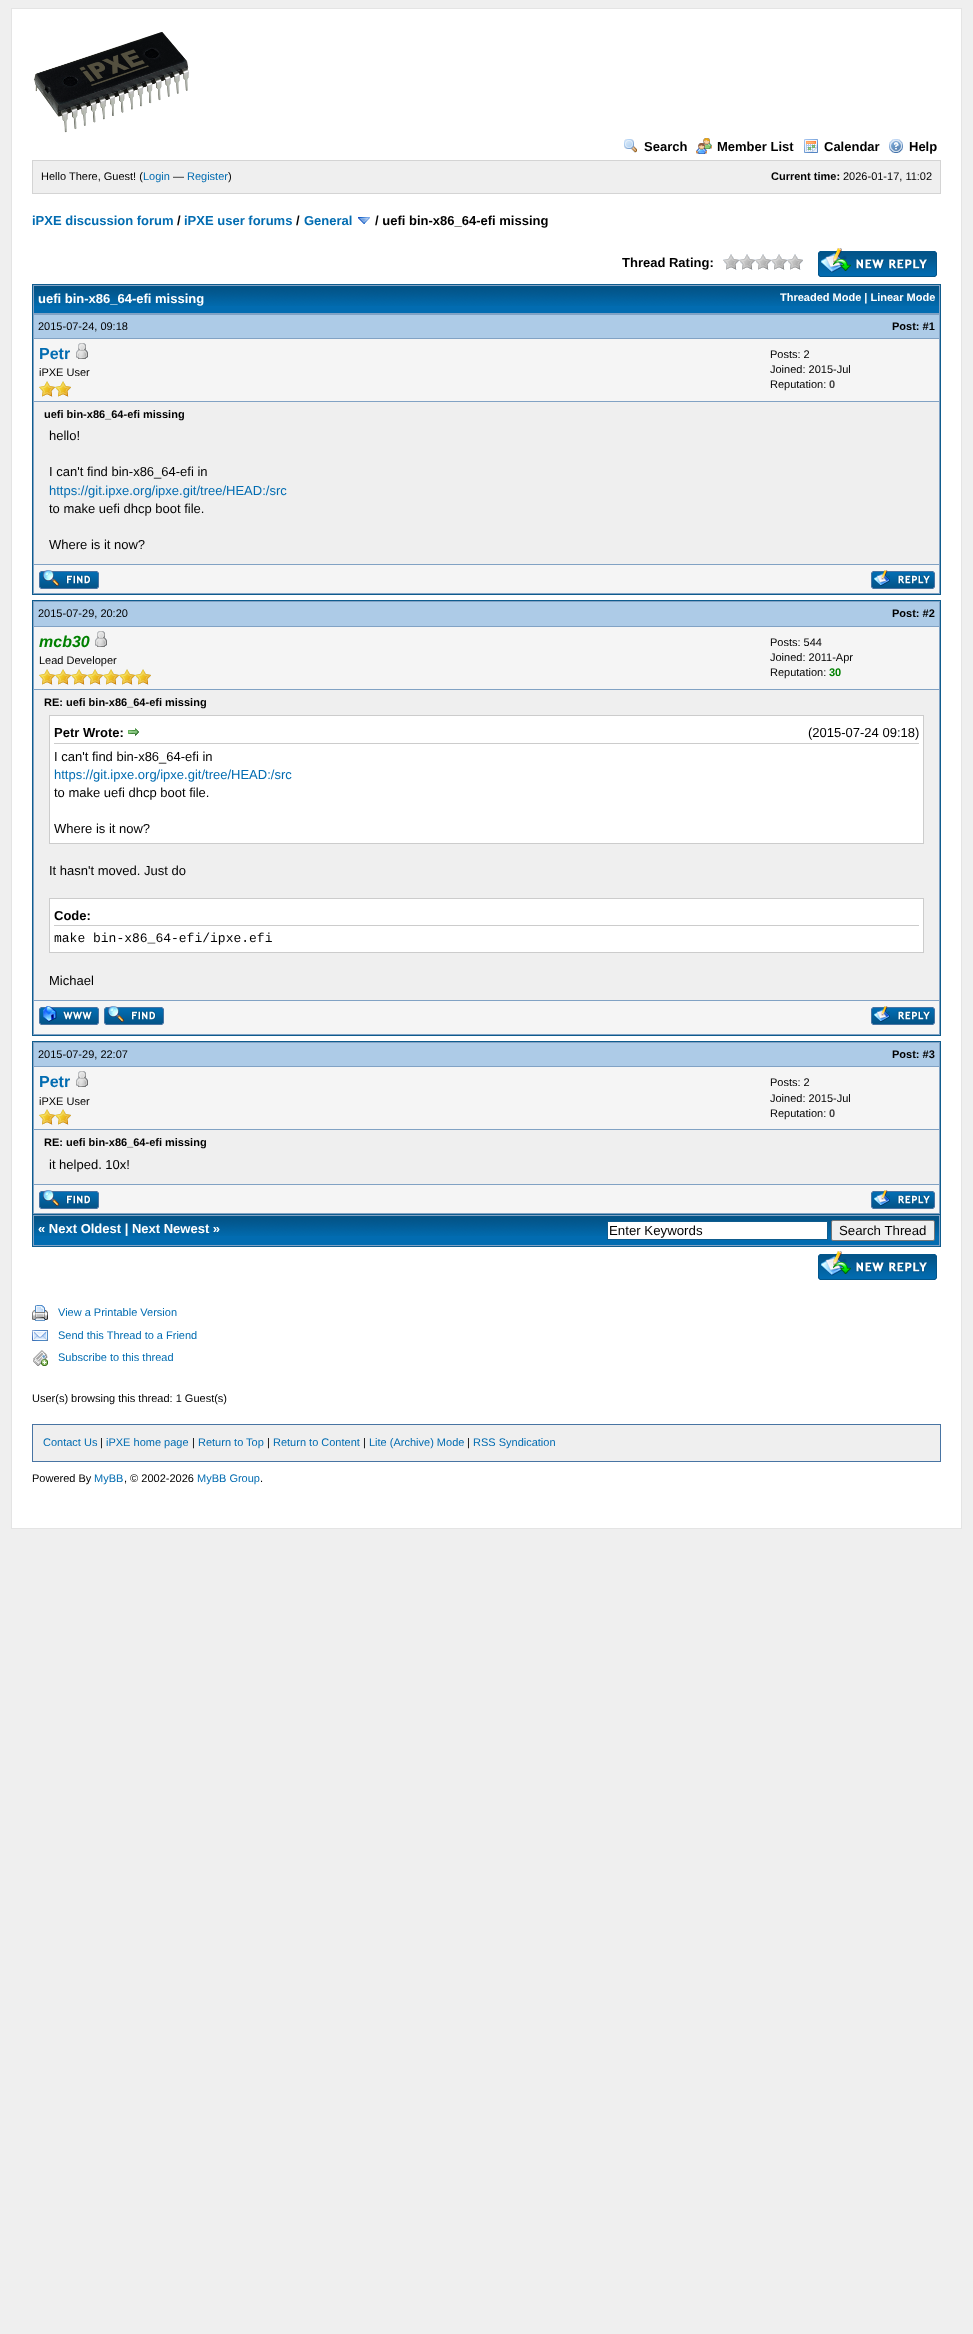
<?xml version="1.0" encoding="UTF-8"?>
<svg xmlns="http://www.w3.org/2000/svg" width="973" height="2334">
    <rect width="100%" height="100%" fill="#EFEFEF"/>
    <rect x="11.5" y="8.5" width="950" height="1520" fill="#FFFFFF" stroke="#E4E4E4"/>
    <image x="33" y="32" width="156" height="101" href="img_01.png"/>
    <image x="624" y="139" width="13" height="14" href="img_02.png"/>
    <text x="644" y="151" font-family="Liberation Sans" font-size="13" font-weight="700" fill="#000000">Search</text>
    <image x="696" y="138" width="16" height="16" href="img_03.png"/>
    <text x="717" y="151" font-family="Liberation Sans" font-size="13" font-weight="700" fill="#000000">Member List</text>
    <image x="804" y="139" width="14" height="14" href="img_04.png"/>
    <text x="824" y="151" font-family="Liberation Sans" font-size="13" font-weight="700" fill="#000000">Calendar</text>
    <image x="889" y="139" width="14" height="14" href="img_05.png"/>
    <text x="909" y="151" font-family="Liberation Sans" font-size="13" font-weight="700" fill="#000000">Help</text>
    <rect x="32.5" y="160.5" width="908" height="33" fill="#EFEFEF" stroke="#D4D4D4"/>
    <text x="41" y="180" font-family="Liberation Sans" font-size="11" fill="#000000">Hello There, Guest! (</text>
    <text x="143" y="180" font-family="Liberation Sans" font-size="11" fill="#026CB1">Login</text>
    <text x="173" y="180" font-family="Liberation Sans" font-size="11" fill="#000000">—</text>
    <text x="187" y="180" font-family="Liberation Sans" font-size="11" fill="#026CB1">Register</text>
    <text x="228" y="180" font-family="Liberation Sans" font-size="11" fill="#000000">)</text>
    <text x="771" y="180" font-family="Liberation Sans" font-size="11" font-weight="700" fill="#000000">Current time:</text>
    <text x="843" y="180" font-family="Liberation Sans" font-size="11" fill="#000000">2026-01-17, 11:02</text>
    <text x="32" y="225" font-family="Liberation Sans" font-size="13" font-weight="700" fill="#026CB1">iPXE discussion forum</text>
    <text x="177" y="225" font-family="Liberation Sans" font-size="13" font-weight="700" fill="#000000">/</text>
    <text x="184" y="225" font-family="Liberation Sans" font-size="13" font-weight="700" fill="#026CB1">iPXE user forums</text>
    <text x="296" y="225" font-family="Liberation Sans" font-size="13" font-weight="700" fill="#000000">/</text>
    <text x="304" y="225" font-family="Liberation Sans" font-size="13" font-weight="700" fill="#026CB1">General</text>
    <image x="358" y="217" width="12" height="7" href="img_06.png"/>
    <text x="375" y="225" font-family="Liberation Sans" font-size="13" font-weight="700" fill="#000000">/ uefi bin-x86_64-efi missing</text>
    <text x="622" y="267" font-family="Liberation Sans" font-size="13" font-weight="700" fill="#000000">Thread Rating:</text>
    <image x="723" y="254" width="80" height="16" href="img_07.png"/>
    <image x="818" y="248" width="119" height="29" href="img_08.png"/>
    <rect x="33" y="285" width="907" height="309" fill="#81A2C4"/>
    <rect x="32" y="284" width="909" height="1" fill="#0F5C8E"/>
    <rect x="940" y="284" width="1" height="311" fill="#0F5C8E"/>
    <rect x="32" y="284" width="1" height="30" fill="#0F5C8E"/>
    <rect x="34" y="306" width="905" height="7" fill="#026CB1"/>
    <image x="34" y="286" width="905" height="20" href="img_09.png"/>
    <text x="38" y="303" font-family="Liberation Sans" font-size="13" font-weight="700" fill="#FFFFFF">uefi bin-x86_64-efi missing</text>
    <text x="780" y="301" font-family="Liberation Sans" font-size="11" font-weight="700" fill="#FFFFFF">Threaded Mode | Linear Mode</text>
    <rect x="32" y="594" width="909" height="1" fill="#0F5C8E"/>
    <rect x="32" y="314" width="1" height="281" fill="#0F5C8E"/>
    <rect x="34" y="315" width="905" height="23" fill="#ADCBE7"/>
    <text x="38" y="330" font-family="Liberation Sans" font-size="11" fill="#000000">2015-07-24, 09:18</text>
    <text x="892" y="330" font-family="Liberation Sans" font-size="11" font-weight="700" fill="#000000">Post: #1</text>
    <rect x="34" y="339" width="905" height="62" fill="#F5F5F5"/>
    <text x="39" y="359" font-family="Liberation Sans" font-size="16" font-weight="700" fill="#026CB1">Petr</text>
    <image x="76" y="343" width="12" height="16" href="img_10.png"/>
    <text x="39" y="376" font-family="Liberation Sans" font-size="11" fill="#000000">iPXE User</text>
    <image x="39" y="381" width="16" height="16" href="img_11.png"/>
    <image x="55" y="381" width="16" height="16" href="img_11.png"/>
    <text font-family="Liberation Sans" font-size="11" fill="#000000">
        <tspan x="770" y="358">Posts: 2</tspan>
        <tspan x="770" y="373">Joined: 2015-Jul</tspan>
        <tspan x="770" y="388">Reputation:</tspan>
    </text>
    <text x="829" y="388" font-family="Liberation Sans" font-size="11" font-weight="700" fill="#444444">0</text>
    <rect x="34" y="402" width="905" height="162" fill="#EFEFEF"/>
    <text x="44" y="418" font-family="Liberation Sans" font-size="11" font-weight="700" fill="#000000">uefi bin-x86_64-efi missing</text>
    <text x="49" y="440" font-family="Liberation Sans" font-size="13" fill="#000000">hello!</text>
    <text x="49" y="476" font-family="Liberation Sans" font-size="13" fill="#000000">I can't find bin-x86_64-efi in</text>
    <text x="49" y="495" font-family="Liberation Sans" font-size="13" fill="#026CB1">https://git.ipxe.org/ipxe.git/tree/HEAD:/src</text>
    <text x="49" y="513" font-family="Liberation Sans" font-size="13" fill="#000000">to make uefi dhcp boot file.</text>
    <text x="49" y="549" font-family="Liberation Sans" font-size="13" fill="#000000">Where is it now?</text>
    <rect x="34" y="565" width="905" height="28" fill="#F5F5F5"/>
    <image x="39" y="570" width="60" height="19" href="img_12.png"/>
    <image x="871" y="570" width="64" height="19" href="img_13.png"/>
    <rect x="32.5" y="600.5" width="908" height="435" fill="#81A2C4" stroke="#0F5C8E"/>
    <rect x="34" y="602" width="905" height="24" fill="#ADCBE7"/>
    <text x="38" y="617" font-family="Liberation Sans" font-size="11" fill="#000000">2015-07-29, 20:20</text>
    <text x="892" y="617" font-family="Liberation Sans" font-size="11" font-weight="700" fill="#000000">Post: #2</text>
    <rect x="34" y="627" width="905" height="62" fill="#F5F5F5"/>
    <text x="39" y="647" font-family="Liberation Sans" font-size="16" font-weight="700" font-style="italic" fill="#008000">mcb30</text>
    <image x="95" y="631" width="12" height="16" href="img_10.png"/>
    <text x="39" y="664" font-family="Liberation Sans" font-size="11" fill="#000000">Lead Developer</text>
    <image x="39" y="669" width="16" height="16" href="img_11.png"/>
    <image x="55" y="669" width="16" height="16" href="img_11.png"/>
    <image x="71" y="669" width="16" height="16" href="img_11.png"/>
    <image x="87" y="669" width="16" height="16" href="img_11.png"/>
    <image x="103" y="669" width="16" height="16" href="img_11.png"/>
    <image x="119" y="669" width="16" height="16" href="img_11.png"/>
    <image x="135" y="669" width="16" height="16" href="img_11.png"/>
    <text font-family="Liberation Sans" font-size="11" fill="#000000">
        <tspan x="770" y="646">Posts: 544</tspan>
        <tspan x="770" y="661">Joined: 2011-Apr</tspan>
        <tspan x="770" y="676">Reputation:</tspan>
    </text>
    <text x="829" y="676" font-family="Liberation Sans" font-size="11" font-weight="700" fill="#008000">30</text>
    <rect x="34" y="690" width="905" height="310" fill="#EFEFEF"/>
    <text x="44" y="706" font-family="Liberation Sans" font-size="11" font-weight="700" fill="#000000">RE: uefi bin-x86_64-efi missing</text>
    <rect x="49.5" y="715.5" width="874" height="128" fill="#FFFFFF" stroke="#CCCCCC"/>
    <rect x="54" y="743" width="865" height="1" fill="#CCCCCC"/>
    <text x="54" y="737" font-family="Liberation Sans" font-size="13" font-weight="700" fill="#000000">Petr Wrote:</text>
    <image x="128" y="728" width="11" height="8" href="img_14.png"/>
    <text x="808" y="737" font-family="Liberation Sans" font-size="13" fill="#000000">(2015-07-24 09:18)</text>
    <text x="54" y="761" font-family="Liberation Sans" font-size="13" fill="#000000">I can't find bin-x86_64-efi in</text>
    <text x="54" y="779" font-family="Liberation Sans" font-size="13" fill="#026CB1">https://git.ipxe.org/ipxe.git/tree/HEAD:/src</text>
    <text x="54" y="797" font-family="Liberation Sans" font-size="13" fill="#000000">to make uefi dhcp boot file.</text>
    <text x="54" y="833" font-family="Liberation Sans" font-size="13" fill="#000000">Where is it now?</text>
    <text x="49" y="875" font-family="Liberation Sans" font-size="13" fill="#000000">It hasn't moved. Just do</text>
    <rect x="49.5" y="898.5" width="874" height="54" fill="#FFFFFF" stroke="#CCCCCC"/>
    <rect x="54" y="925" width="865" height="1" fill="#CCCCCC"/>
    <text x="54" y="920" font-family="Liberation Sans" font-size="13" font-weight="700" fill="#000000">Code:</text>
    <text x="54" y="942" font-family="Liberation Mono" font-size="13" fill="#000000">make bin-x86_64-efi/ipxe.efi</text>
    <text x="49" y="985" font-family="Liberation Sans" font-size="13" fill="#000000">Michael</text>
    <rect x="34" y="1001" width="905" height="33" fill="#F5F5F5"/>
    <image x="39" y="1006" width="60" height="19" href="img_15.png"/>
    <image x="104" y="1006" width="60" height="19" href="img_12.png"/>
    <image x="871" y="1006" width="64" height="19" href="img_13.png"/>
    <rect x="32.5" y="1041.5" width="908" height="173" fill="#81A2C4" stroke="#0F5C8E"/>
    <rect x="34" y="1043" width="905" height="23" fill="#ADCBE7"/>
    <text x="38" y="1058" font-family="Liberation Sans" font-size="11" fill="#000000">2015-07-29, 22:07</text>
    <text x="892" y="1058" font-family="Liberation Sans" font-size="11" font-weight="700" fill="#000000">Post: #3</text>
    <rect x="34" y="1067" width="905" height="62" fill="#F5F5F5"/>
    <text x="39" y="1087" font-family="Liberation Sans" font-size="16" font-weight="700" fill="#026CB1">Petr</text>
    <image x="76" y="1071" width="12" height="16" href="img_10.png"/>
    <text x="39" y="1105" font-family="Liberation Sans" font-size="11" fill="#000000">iPXE User</text>
    <image x="39" y="1109" width="16" height="16" href="img_11.png"/>
    <image x="55" y="1109" width="16" height="16" href="img_11.png"/>
    <text font-family="Liberation Sans" font-size="11" fill="#000000">
        <tspan x="770" y="1086">Posts: 2</tspan>
        <tspan x="770" y="1102">Joined: 2015-Jul</tspan>
        <tspan x="770" y="1117">Reputation:</tspan>
    </text>
    <text x="829" y="1117" font-family="Liberation Sans" font-size="11" font-weight="700" fill="#444444">0</text>
    <rect x="34" y="1130" width="905" height="54" fill="#EFEFEF"/>
    <text x="44" y="1146" font-family="Liberation Sans" font-size="11" font-weight="700" fill="#000000">RE: uefi bin-x86_64-efi missing</text>
    <text x="49" y="1169" font-family="Liberation Sans" font-size="13" fill="#000000">it helped. 10x!</text>
    <rect x="34" y="1185" width="905" height="28" fill="#F5F5F5"/>
    <image x="39" y="1190" width="60" height="19" href="img_12.png"/>
    <image x="871" y="1190" width="64" height="19" href="img_13.png"/>
    <rect x="33" y="1215" width="907" height="31" fill="#81A2C4"/>
    <rect x="940" y="1215" width="1" height="32" fill="#0F5C8E"/>
    <rect x="32" y="1246" width="909" height="1" fill="#0F5C8E"/>
    <rect x="32" y="1215" width="1" height="32" fill="#0F5C8E"/>
    <rect x="34" y="1236" width="905" height="9" fill="#026CB1"/>
    <image x="34" y="1216" width="905" height="20" href="img_09.png"/>
    <text x="38" y="1233" font-family="Liberation Sans" font-size="13" font-weight="700" fill="#FFFFFF">« Next Oldest | Next Newest »</text>
    <rect x="607.5" y="1221.5" width="220" height="18" fill="#FFFFFF" stroke="#0F5C8E"/>
    <text x="609" y="1235" font-family="Liberation Sans" font-size="13.25" fill="#000000">Enter Keywords</text>
    <rect x="831.5" y="1220.5" width="103" height="20" rx="1.5" fill="#EFEFEF" stroke="#767676"/>
    <text x="839" y="1235" font-family="Liberation Sans" font-size="13.25" fill="#000000">Search Thread</text>
    <image x="818" y="1251" width="119" height="29" href="img_08.png"/>
    <image x="32" y="1305" width="16" height="16" href="img_16.png"/>
    <text x="58" y="1316" font-family="Liberation Sans" font-size="11" fill="#026CB1">View a Printable Version</text>
    <image x="32" y="1330" width="16" height="11" href="img_17.png"/>
    <text x="58" y="1339" font-family="Liberation Sans" font-size="11" fill="#026CB1">Send this Thread to a Friend</text>
    <image x="33" y="1350" width="15" height="16" href="img_18.png"/>
    <text x="58" y="1361" font-family="Liberation Sans" font-size="11" fill="#026CB1">Subscribe to this thread</text>
    <text x="32" y="1402" font-family="Liberation Sans" font-size="11" fill="#000000">User(s) browsing this thread: 1 Guest(s)</text>
    <rect x="32.5" y="1424.5" width="908" height="37" fill="#EFEFEF" stroke="#4874A3"/>
    <text x="43" y="1446" font-family="Liberation Sans" font-size="11" fill="#026CB1">Contact Us</text>
    <text x="100" y="1446" font-family="Liberation Sans" font-size="11" fill="#000000">|</text>
    <text x="106" y="1446" font-family="Liberation Sans" font-size="11" fill="#026CB1">iPXE home page</text>
    <text x="192" y="1446" font-family="Liberation Sans" font-size="11" fill="#000000">|</text>
    <text x="198" y="1446" font-family="Liberation Sans" font-size="11" fill="#026CB1">Return to Top</text>
    <text x="267" y="1446" font-family="Liberation Sans" font-size="11" fill="#000000">|</text>
    <text x="273" y="1446" font-family="Liberation Sans" font-size="11" fill="#026CB1">Return to Content</text>
    <text x="363" y="1446" font-family="Liberation Sans" font-size="11" fill="#000000">|</text>
    <text x="369" y="1446" font-family="Liberation Sans" font-size="11" fill="#026CB1">Lite (Archive) Mode</text>
    <text x="467" y="1446" font-family="Liberation Sans" font-size="11" fill="#000000">|</text>
    <text x="473" y="1446" font-family="Liberation Sans" font-size="11" fill="#026CB1">RSS Syndication</text>
    <text x="32" y="1482" font-family="Liberation Sans" font-size="11" fill="#000000">Powered By</text>
    <text x="94" y="1482" font-family="Liberation Sans" font-size="11" fill="#026CB1">MyBB</text>
    <text x="124" y="1482" font-family="Liberation Sans" font-size="11" fill="#000000">, © 2002-2026</text>
    <text x="197" y="1482" font-family="Liberation Sans" font-size="11" fill="#026CB1">MyBB Group</text>
    <text x="260" y="1482" font-family="Liberation Sans" font-size="11" fill="#000000">.</text>
</svg>
